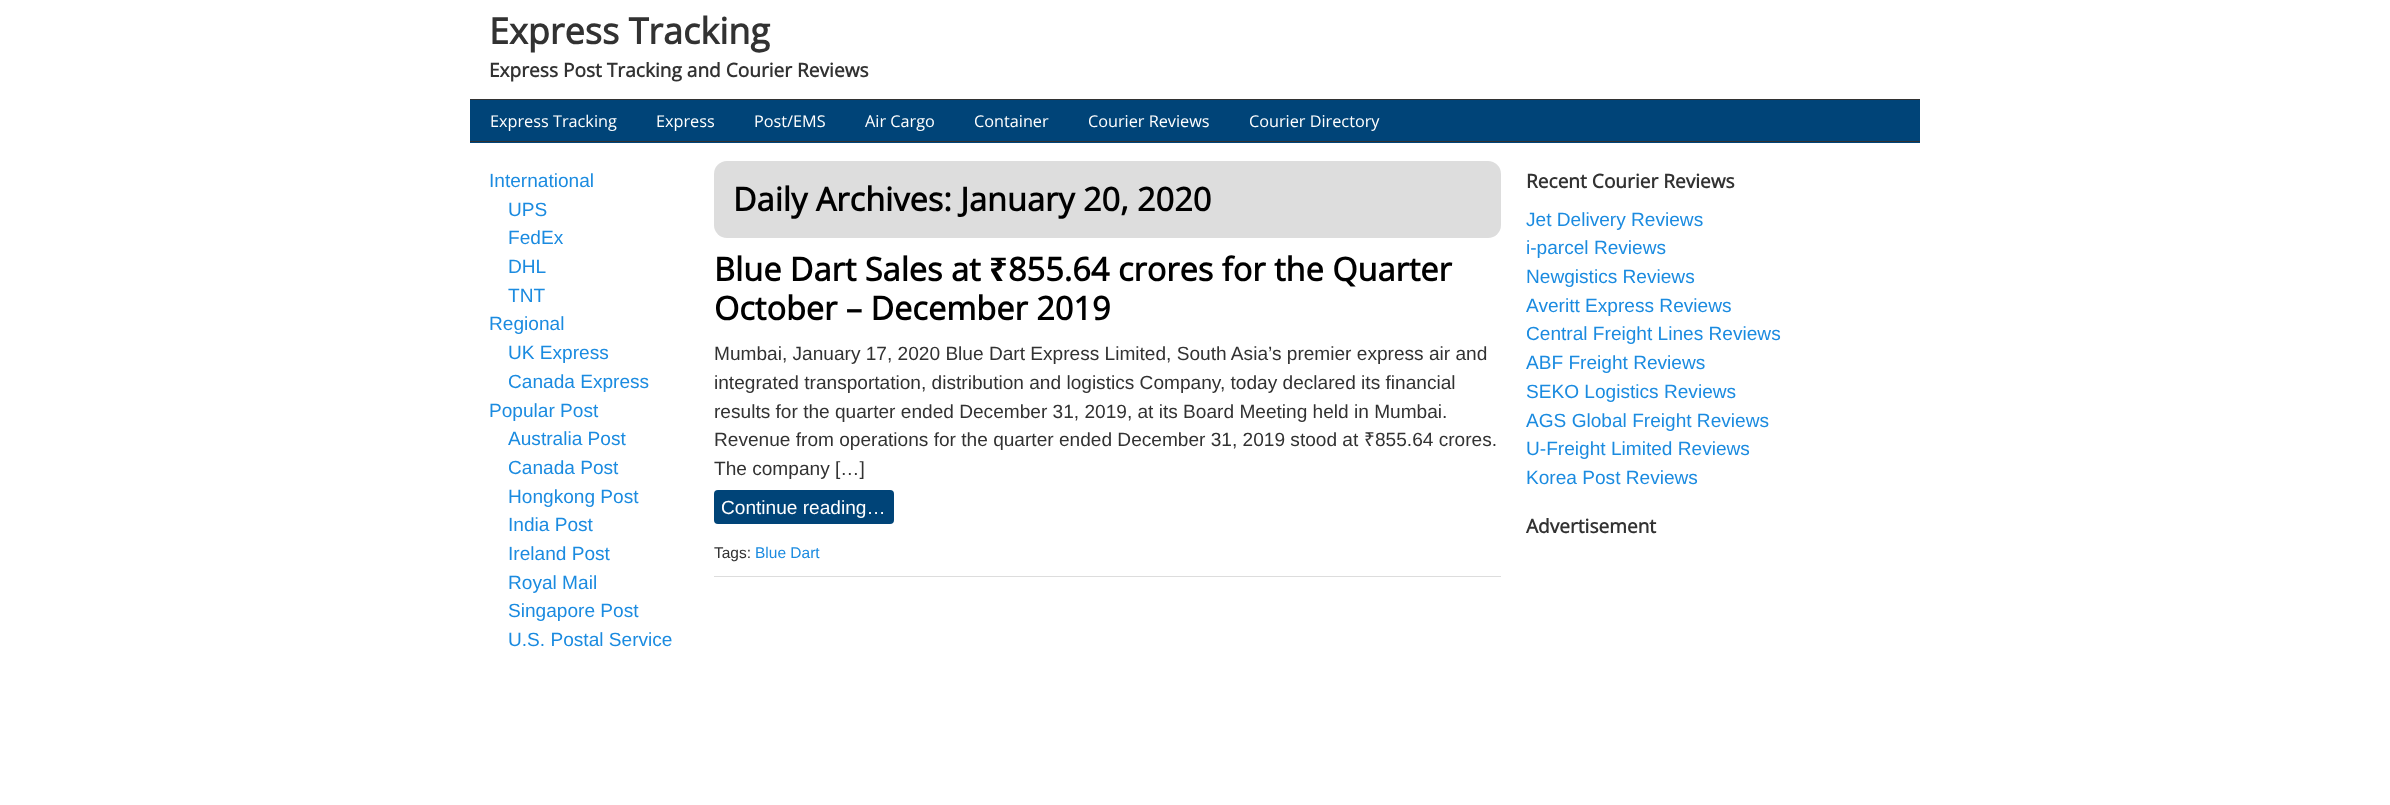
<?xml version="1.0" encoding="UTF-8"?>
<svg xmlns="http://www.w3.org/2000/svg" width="2390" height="805">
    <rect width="100%" height="100%" fill="#FFFFFF"/>
    <rect x="470" y="99" width="1450" height="1" fill="#323232"/>
    <text x="489" y="44" font-family="Open Sans" font-size="36" font-weight="700" fill="#323232">Express Tracking</text>
    <text x="489" y="77" font-family="Open Sans" font-size="19.1" font-weight="700" fill="#323232">Express Post Tracking and Courier Reviews</text>
    <rect x="470" y="100" width="1450" height="43" fill="#004478"/>
    <rect x="470" y="141" width="1450" height="1" fill="#323232"/>
    <text x="490" y="127" font-family="Open Sans" font-size="16.25" fill="#FFFFFF">Express Tracking</text>
    <text x="656" y="127" font-family="Open Sans" font-size="16.25" fill="#FFFFFF">Express</text>
    <text x="754" y="127" font-family="Open Sans" font-size="16.25" fill="#FFFFFF">Post/EMS</text>
    <text x="865" y="127" font-family="Open Sans" font-size="16.25" fill="#FFFFFF">Air Cargo</text>
    <text x="974" y="127" font-family="Open Sans" font-size="16.25" fill="#FFFFFF">Container</text>
    <text x="1088" y="127" font-family="Open Sans" font-size="16.25" fill="#FFFFFF">Courier Reviews</text>
    <text x="1249" y="127" font-family="Open Sans" font-size="16.25" fill="#FFFFFF">Courier Directory</text>
    <text x="489" y="187" font-family="Liberation Sans" font-size="19.1" fill="#1B8BE0">International</text>
    <text font-family="Liberation Sans" font-size="19.1" fill="#1B8BE0">
        <tspan x="508" y="216">UPS</tspan>
        <tspan x="508" y="244">FedEx</tspan>
        <tspan x="508" y="273">DHL</tspan>
        <tspan x="508" y="302">TNT</tspan>
    </text>
    <text x="489" y="330" font-family="Liberation Sans" font-size="19.1" fill="#1B8BE0">Regional</text>
    <text font-family="Liberation Sans" font-size="19.1" fill="#1B8BE0">
        <tspan x="508" y="359">UK Express</tspan>
        <tspan x="508" y="388">Canada Express</tspan>
    </text>
    <text x="489" y="417" font-family="Liberation Sans" font-size="19.1" fill="#1B8BE0">Popular Post</text>
    <text font-family="Liberation Sans" font-size="19.1" fill="#1B8BE0">
        <tspan x="508" y="445">Australia Post</tspan>
        <tspan x="508" y="474">Canada Post</tspan>
        <tspan x="508" y="503">Hongkong Post</tspan>
        <tspan x="508" y="531">India Post</tspan>
        <tspan x="508" y="560">Ireland Post</tspan>
        <tspan x="508" y="589">Royal Mail</tspan>
        <tspan x="508" y="617">Singapore Post</tspan>
        <tspan x="508" y="646">U.S. Postal Service</tspan>
    </text>
    <rect x="714" y="161" width="787" height="77" rx="13" fill="#DDDDDD"/>
    <text x="733" y="211" font-family="Open Sans" font-size="32.5" font-weight="700" fill="#000000">Daily Archives: January 20, 2020</text>
    <rect x="714" y="576" width="787" height="1" fill="#DDDDDD"/>
    <text x="714" y="281" font-family="Open Sans" font-size="32.5" font-weight="700" fill="#000000">Blue Dart Sales at</text>
    <text x="989" y="281" font-family="Noto Sans" font-size="32.5" font-weight="700" fill="#000000">₹</text>
    <text x="1008" y="281" font-family="Open Sans" font-size="32.5" font-weight="700" fill="#000000">855.64 crores for the Quarter</text>
    <text x="714" y="320" font-family="Open Sans" font-size="32.5" font-weight="700" fill="#000000">October – December 2019</text>
    <text font-family="Liberation Sans" font-size="19.1" fill="#323232">
        <tspan x="714" y="360">Mumbai, January 17, 2020 Blue Dart Express Limited, South Asia’s premier express air and</tspan>
        <tspan x="714" y="389">integrated transportation, distribution and logistics Company, today declared its financial</tspan>
        <tspan x="714" y="418">results for the quarter ended December 31, 2019, at its Board Meeting held in Mumbai.</tspan>
        <tspan x="714" y="446">Revenue from operations for the quarter ended December 31, 2019 stood at</tspan>
    </text>
    <text x="1364" y="446" font-family="Noto Sans" font-size="19.1" fill="#323232">₹</text>
    <text x="1375" y="446" font-family="Liberation Sans" font-size="19.1" fill="#323232">855.64 crores.</text>
    <text x="714" y="475" font-family="Liberation Sans" font-size="19.1" fill="#323232">The company […]</text>
    <rect x="714" y="490" width="180" height="34" rx="4" fill="#004478"/>
    <text x="721" y="514" font-family="Liberation Sans" font-size="19.1" fill="#FFFFFF">Continue reading…</text>
    <text x="714" y="558" font-family="Liberation Sans" font-size="15.5" fill="#323232">Tags:</text>
    <text x="755" y="558" font-family="Liberation Sans" font-size="15.5" fill="#1B8BE0">Blue Dart</text>
    <text x="1526" y="188" font-family="Open Sans" font-size="19.1" font-weight="700" fill="#323232">Recent Courier Reviews</text>
    <text font-family="Liberation Sans" font-size="19.1" fill="#1B8BE0">
        <tspan x="1526" y="226">Jet Delivery Reviews</tspan>
        <tspan x="1526" y="254">i-parcel Reviews</tspan>
        <tspan x="1526" y="283">Newgistics Reviews</tspan>
        <tspan x="1526" y="312">Averitt Express Reviews</tspan>
        <tspan x="1526" y="340">Central Freight Lines Reviews</tspan>
        <tspan x="1526" y="369">ABF Freight Reviews</tspan>
        <tspan x="1526" y="398">SEKO Logistics Reviews</tspan>
        <tspan x="1526" y="427">AGS Global Freight Reviews</tspan>
        <tspan x="1526" y="455">U-Freight Limited Reviews</tspan>
        <tspan x="1526" y="484">Korea Post Reviews</tspan>
    </text>
    <text x="1526" y="533" font-family="Open Sans" font-size="19.1" font-weight="700" fill="#323232">Advertisement</text>
</svg>
